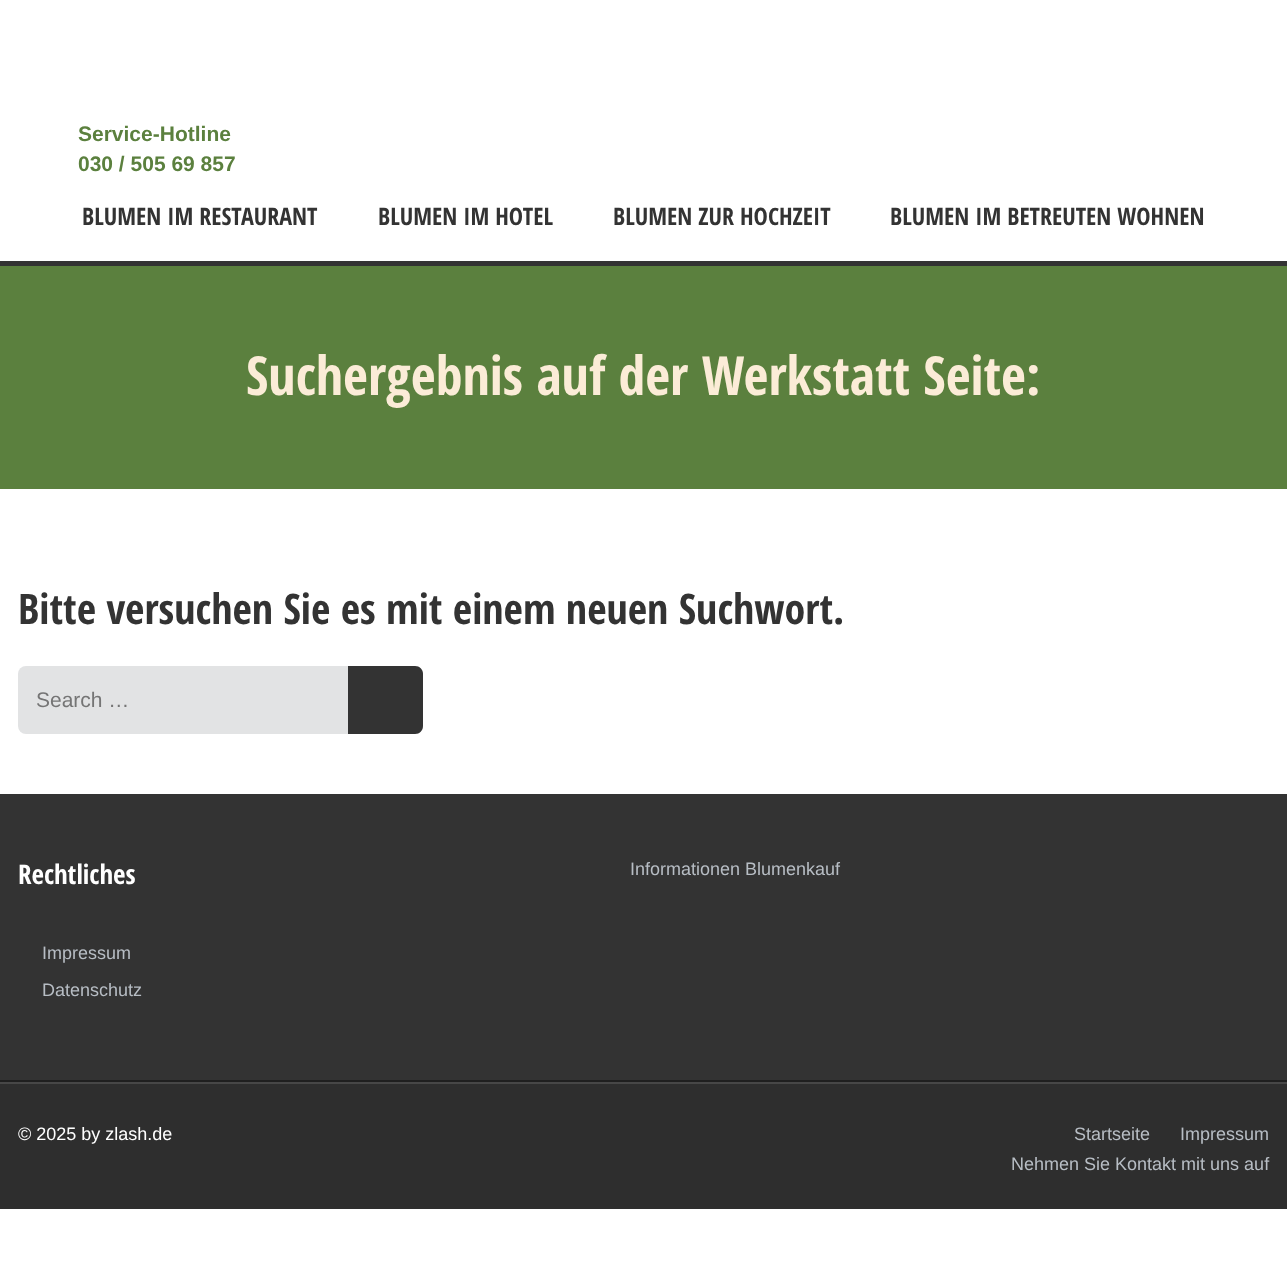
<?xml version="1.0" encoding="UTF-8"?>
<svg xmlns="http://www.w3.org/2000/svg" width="1287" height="1262">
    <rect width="100%" height="100%" fill="#FFFFFF"/>
    <rect x="0" y="261" width="1287" height="5" fill="#333333"/>
    <text font-family="Liberation Sans" font-size="21" font-weight="700" fill="#5B803E">
        <tspan x="78" y="141">Service-Hotline</tspan>
        <tspan x="78" y="171">030 / 505 69 857</tspan>
    </text>
    <text x="82" y="225" font-family="Open Sans Condensed" font-size="24" font-weight="700" fill="#333333">BLUMEN IM RESTAURANT</text>
    <text x="378" y="225" font-family="Open Sans Condensed" font-size="24" font-weight="700" fill="#333333">BLUMEN IM HOTEL</text>
    <text x="613" y="225" font-family="Open Sans Condensed" font-size="24" font-weight="700" fill="#333333">BLUMEN ZUR HOCHZEIT</text>
    <text x="890" y="225" font-family="Open Sans Condensed" font-size="24" font-weight="700" fill="#333333">BLUMEN IM BETREUTEN WOHNEN</text>
    <rect x="0" y="266" width="1287" height="223" fill="#5B803E"/>
    <text x="246" y="395" font-family="Open Sans Condensed" font-size="54" font-weight="700" fill="#FBECD7">Suchergebnis auf der Werkstatt Seite:</text>
    <text x="18" y="624" font-family="Open Sans Condensed" font-size="42" font-weight="700" fill="#333333">Bitte versuchen Sie es mit einem neuen Suchwort.</text>
    <rect x="18" y="666" width="405" height="68" rx="8" fill="#E2E3E4"/>
    <text x="36" y="707" font-family="Liberation Sans" font-size="21" fill="#757575">Search …</text>
    <path d="M 348 666 H 415 C 419.5 666 423 669.5 423 674 V 726 C 423 730.5 419.5 734 415 734 H 348 Z" fill="#333333"/>
    <rect x="0" y="794" width="1287" height="286" fill="#333333"/>
    <text x="18" y="884" font-family="Open Sans Condensed" font-size="27" font-weight="700" fill="#FFFFFF">Rechtliches</text>
    <text x="42" y="959" font-family="Liberation Sans" font-size="18" fill="#B7BDC4">Impressum</text>
    <text x="42" y="996" font-family="Liberation Sans" font-size="18" fill="#B7BDC4">Datenschutz</text>
    <text x="630" y="875" font-family="Liberation Sans" font-size="18" fill="#B7BDC4">Informationen Blumenkauf</text>
    <rect x="0" y="1084" width="1287" height="125" fill="#2E2E2E"/>
    <rect x="0" y="1082" width="1287" height="2" fill="#474747"/>
    <rect x="0" y="1080" width="1287" height="2" fill="#1F1F1F"/>
    <text x="18" y="1140" font-family="Liberation Sans" font-size="18" fill="#FFFFFF">© 2025 by zlash.de</text>
    <text x="1074" y="1140" font-family="Liberation Sans" font-size="18" fill="#B7BDC4">Startseite</text>
    <text x="1180" y="1140" font-family="Liberation Sans" font-size="18" fill="#B7BDC4">Impressum</text>
    <text x="1011" y="1170" font-family="Liberation Sans" font-size="18" fill="#B7BDC4">Nehmen Sie Kontakt mit uns auf</text>
</svg>
